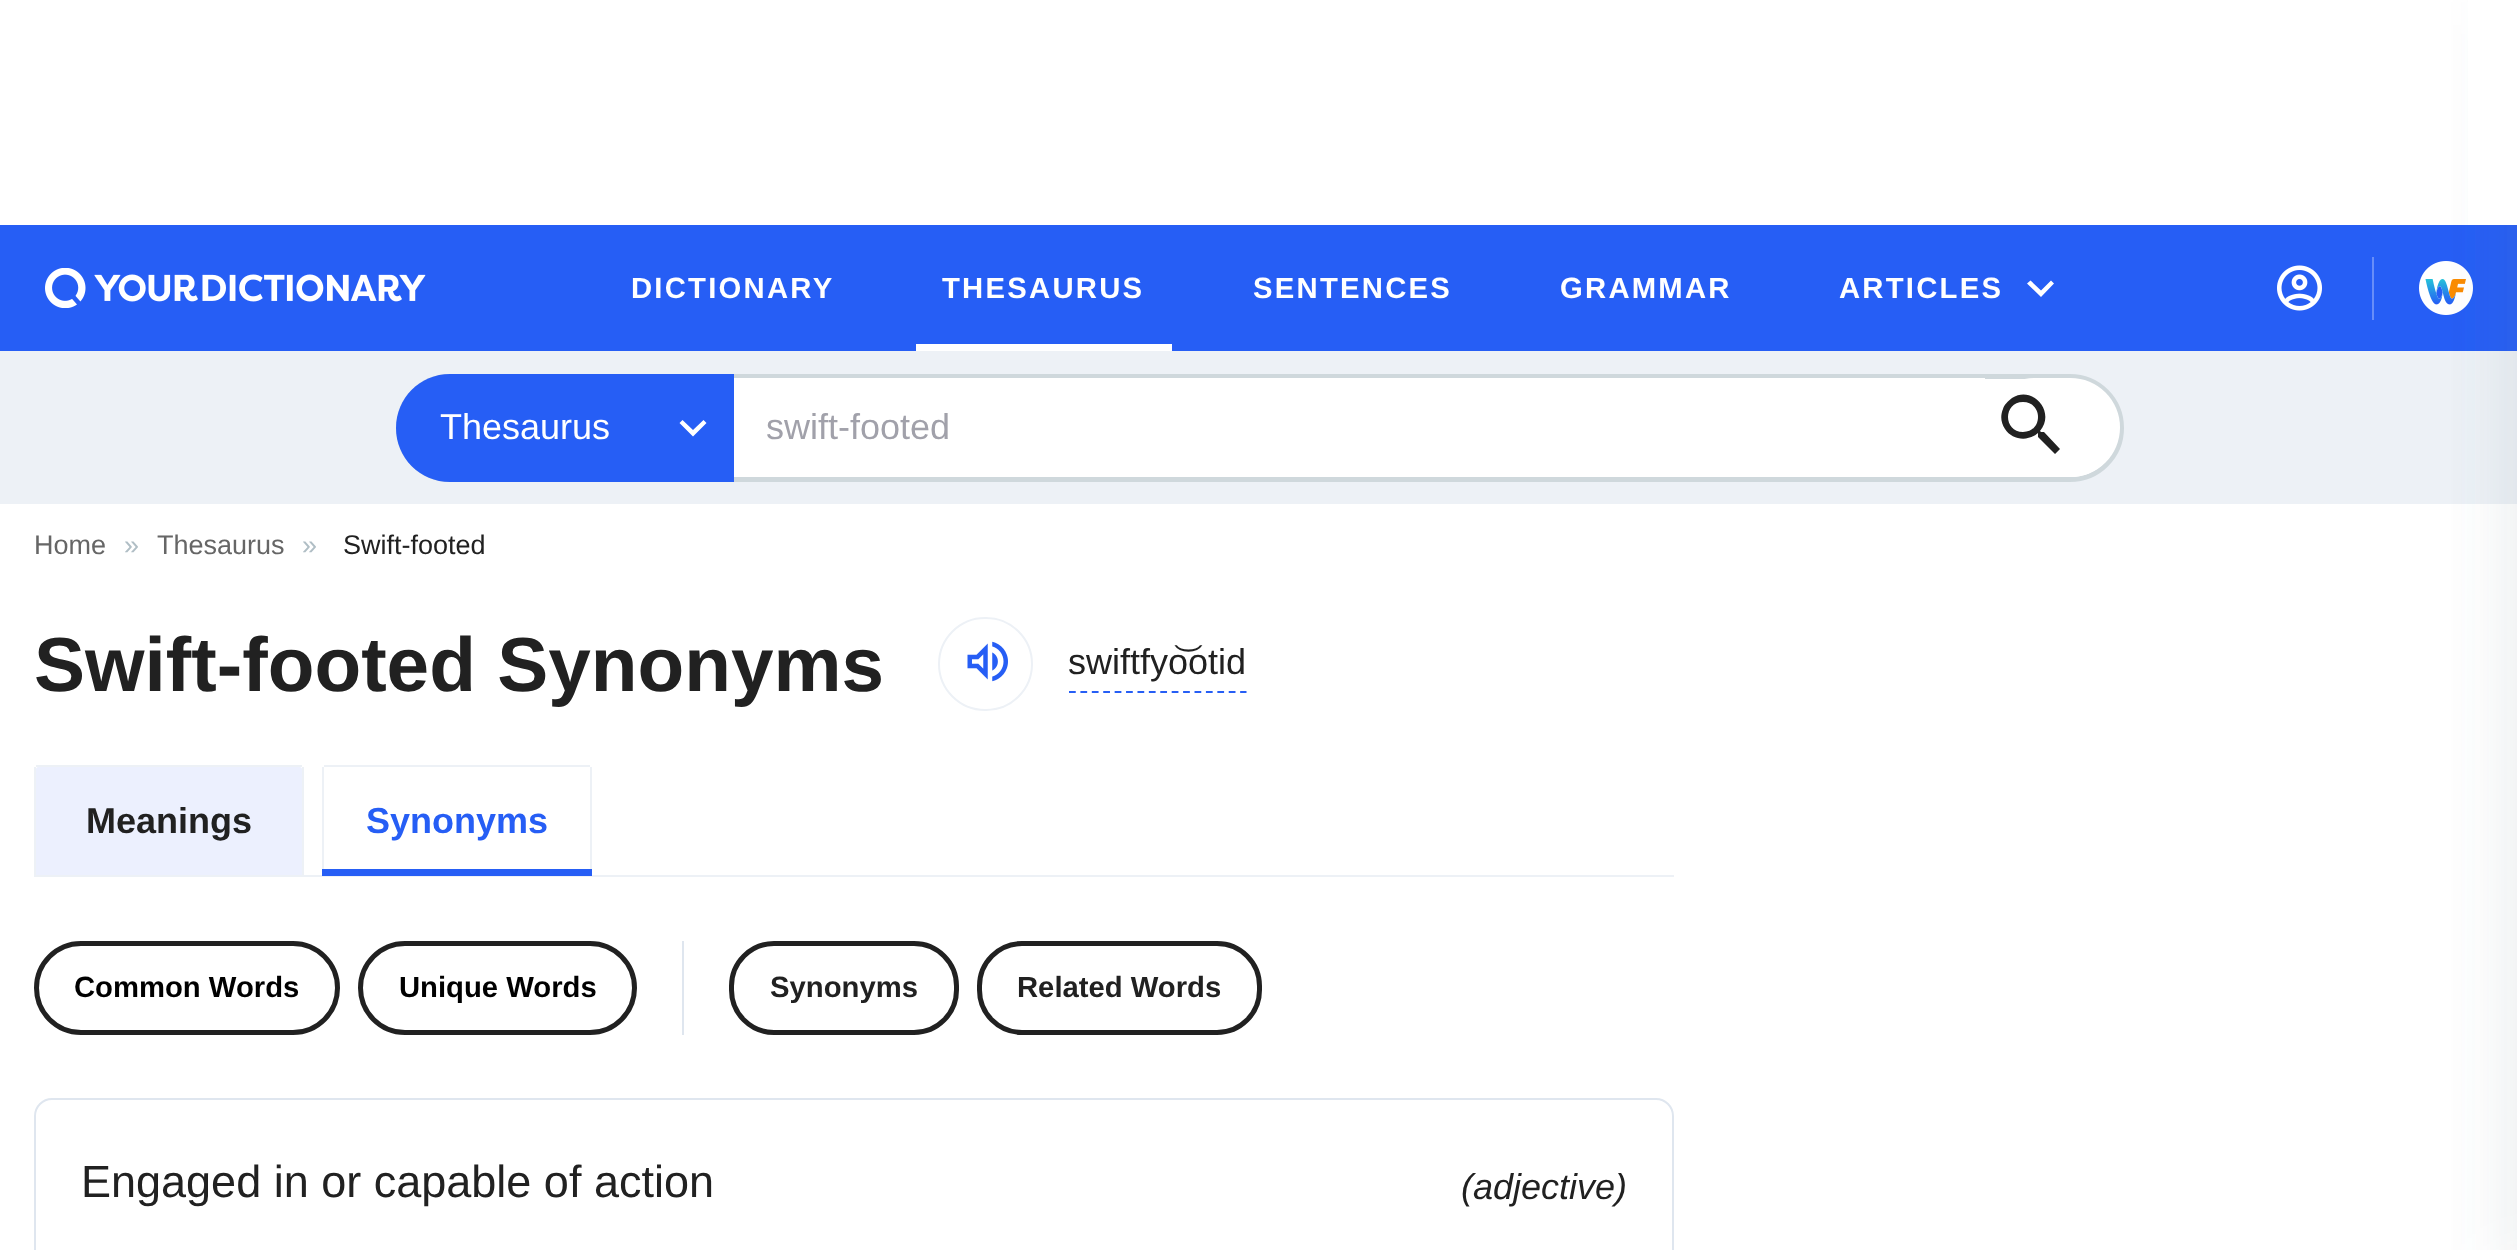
<?xml version="1.0" encoding="UTF-8"?>
<svg xmlns="http://www.w3.org/2000/svg" width="2517" height="1250">
    <defs>
        <filter id="blur1" x="-50%" y="-200%" width="200%" height="500%"><feGaussianBlur stdDeviation="34"/></filter>
    </defs>
    <rect width="100%" height="100%" fill="#FFFFFF"/>
    <rect x="0" y="225" width="2517" height="126" fill="#265EF5"/>
    <image x="2419" y="261" width="54" height="54" href="img_03.png"/>
    <rect x="0" y="351" width="2517" height="153" fill="#EDF1F6"/>
    <rect x="2507" y="2" width="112" height="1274" fill="#546E7A" fill-opacity="0.12" filter="url(#blur1)"/>
    <rect x="2468" y="0" width="49" height="225" fill="#FFFFFF"/>
    <image x="45" y="268" width="381" height="40" href="img_01.png"/>
    <text x="631" y="298" font-family="Liberation Sans" font-size="29.25" font-weight="700" letter-spacing="2.25" fill="#FFFFFF">DICTIONARY</text>
    <text x="942" y="298" font-family="Liberation Sans" font-size="29.25" font-weight="700" letter-spacing="2.25" fill="#FFFFFF">THESAURUS</text>
    <rect x="916" y="344" width="256" height="7" fill="#FFFFFF"/>
    <text x="1253" y="298" font-family="Liberation Sans" font-size="29.25" font-weight="700" letter-spacing="2.25" fill="#FFFFFF">SENTENCES</text>
    <text x="1560" y="298" font-family="Liberation Sans" font-size="29.25" font-weight="700" letter-spacing="2.25" fill="#FFFFFF">GRAMMAR</text>
    <text x="1839" y="298" font-family="Liberation Sans" font-size="29.25" font-weight="700" letter-spacing="2.25" fill="#FFFFFF">ARTICLES</text>
    <path d="M 2051 280.5 L 2041 290.5 L 2030.5 280.5 L 2027 283.5 L 2041 297 L 2054 283.5 Z" fill="#FFFFFF"/>
    <rect x="2372" y="257" width="2" height="63" fill="#678EF8"/>
    <image x="2277" y="265" width="45" height="46" href="img_02.png"/>
    <rect x="398.5" y="376.5" width="1723" height="103" rx="51.5" fill="#FFFFFF" stroke="#CFD8DC" stroke-width="5"/>
    <path d="M 450 374 H 734 V 482 H 450 C 420 482 396 458 396 428 C 396 398 420 374 450 374 Z" fill="#265EF5"/>
    <text x="440" y="439" font-family="Liberation Sans" font-size="36" fill="#FFFFFF">Thesaurus</text>
    <path d="M 703.5 420 L 693 430 L 682.5 420 L 679.5 423 L 693 436.5 L 706.5 423 Z" fill="#FFFFFF"/>
    <rect x="734" y="378" width="1251" height="1" fill="#FFFFFF"/>
    <text x="766" y="439" font-family="Liberation Sans" font-size="36" fill="#A1A1AA">swift-footed</text>
    <rect x="1985" y="378" width="135" height="99" rx="49.5" fill="#FFFFFF"/>
    <path d="M 2044 432 H 2041 L 2040 431 C 2056 412 2033 385 2012 398 C 2008 401 2004 405 2003 409 C 2000 416 2001 423 2005 429 C 2012 440 2028 442 2038 433 V 434 V 437 L 2055 454 L 2060 449 Z M 2023 432 C 2003 432 2003 402 2023 402 C 2043 402 2043 432 2023 432 Z" fill="#212121"/>
    <text x="34" y="554" font-family="Liberation Sans" font-size="27" fill="#666666">Home</text>
    <text x="124" y="554" font-family="Liberation Sans" font-size="27" fill="#B0BEC5">»</text>
    <text x="157" y="554" font-family="Liberation Sans" font-size="27" fill="#666666">Thesaurus</text>
    <text x="302" y="554" font-family="Liberation Sans" font-size="27" fill="#B0BEC5">»</text>
    <text x="343" y="554" font-family="Liberation Sans" font-size="27" fill="#212121">Swift-footed</text>
    <text x="34" y="691" font-family="Liberation Sans" font-size="76.5" font-weight="700" fill="#212121">Swift-footed Synonyms</text>
    <rect x="939" y="618" width="93" height="92" rx="46" fill="none" stroke="#EDF1F6" stroke-width="2"/>
    <image x="967" y="641" width="41" height="41" href="img_04.png"/>
    <path d="M 1069 692 H 1246.5" fill="none" stroke="#265EF5" stroke-width="2.2" stroke-dasharray="6.75 4.66"/>
    <text x="1068" y="674" font-family="Liberation Sans" font-size="36" fill="#212121">swiftfyo͝otid</text>
    <rect x="34" y="875" width="1640" height="2" fill="#EDF1F6"/>
    <path d="M 38 767 H 300 C 301 767 302 768 302 769 V 875 H 36 V 769 C 36 768 37 767 38 767 Z" fill="#ECF0FE"/>
    <rect x="36" y="765" width="266" height="2" fill="#EDF1F6"/>
    <rect x="302" y="767" width="2" height="108" fill="#EDF1F6"/>
    <rect x="34" y="767" width="2" height="108" fill="#EDF1F6"/>
    <text x="86" y="833" font-family="Liberation Sans" font-size="36" font-weight="700" fill="#212121">Meanings</text>
    <rect x="324" y="765" width="266" height="2" fill="#EDF1F6"/>
    <rect x="590" y="767" width="2" height="108" fill="#EDF1F6"/>
    <rect x="322" y="767" width="2" height="108" fill="#EDF1F6"/>
    <text x="366" y="833" font-family="Liberation Sans" font-size="36" font-weight="700" fill="#265EF5">Synonyms</text>
    <rect x="322" y="869" width="270" height="7" fill="#265EF5"/>
    <rect x="36.5" y="943.5" width="301" height="89" rx="44.5" fill="none" stroke="#212121" stroke-width="5"/>
    <text x="74" y="997" font-family="Liberation Sans" font-size="29.25" font-weight="700" fill="#000000">Common Words</text>
    <rect x="360.5" y="943.5" width="274" height="89" rx="44.5" fill="none" stroke="#212121" stroke-width="5"/>
    <text x="399" y="997" font-family="Liberation Sans" font-size="29.25" font-weight="700" fill="#000000">Unique Words</text>
    <rect x="682" y="941" width="2" height="94" fill="#DFE6EF"/>
    <rect x="731.5" y="943.5" width="225" height="89" rx="42.5" fill="none" stroke="#212121" stroke-width="5"/>
    <text x="770" y="997" font-family="Liberation Sans" font-size="29.25" font-weight="700" fill="#212121">Synonyms</text>
    <rect x="979.5" y="943.5" width="280" height="89" rx="42.5" fill="none" stroke="#212121" stroke-width="5"/>
    <text x="1017" y="997" font-family="Liberation Sans" font-size="29.25" font-weight="700" fill="#212121">Related Words</text>
    <rect x="35" y="1099" width="1638" height="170" rx="17" fill="none" stroke="#DFE6EF" stroke-width="2"/>
    <text x="81" y="1197" font-family="Liberation Sans" font-size="45" fill="#212121">Engaged in or capable of action</text>
    <text x="1461" y="1199" font-family="Liberation Sans" font-size="36" font-style="italic" fill="#212121">(adjective)</text>
</svg>
